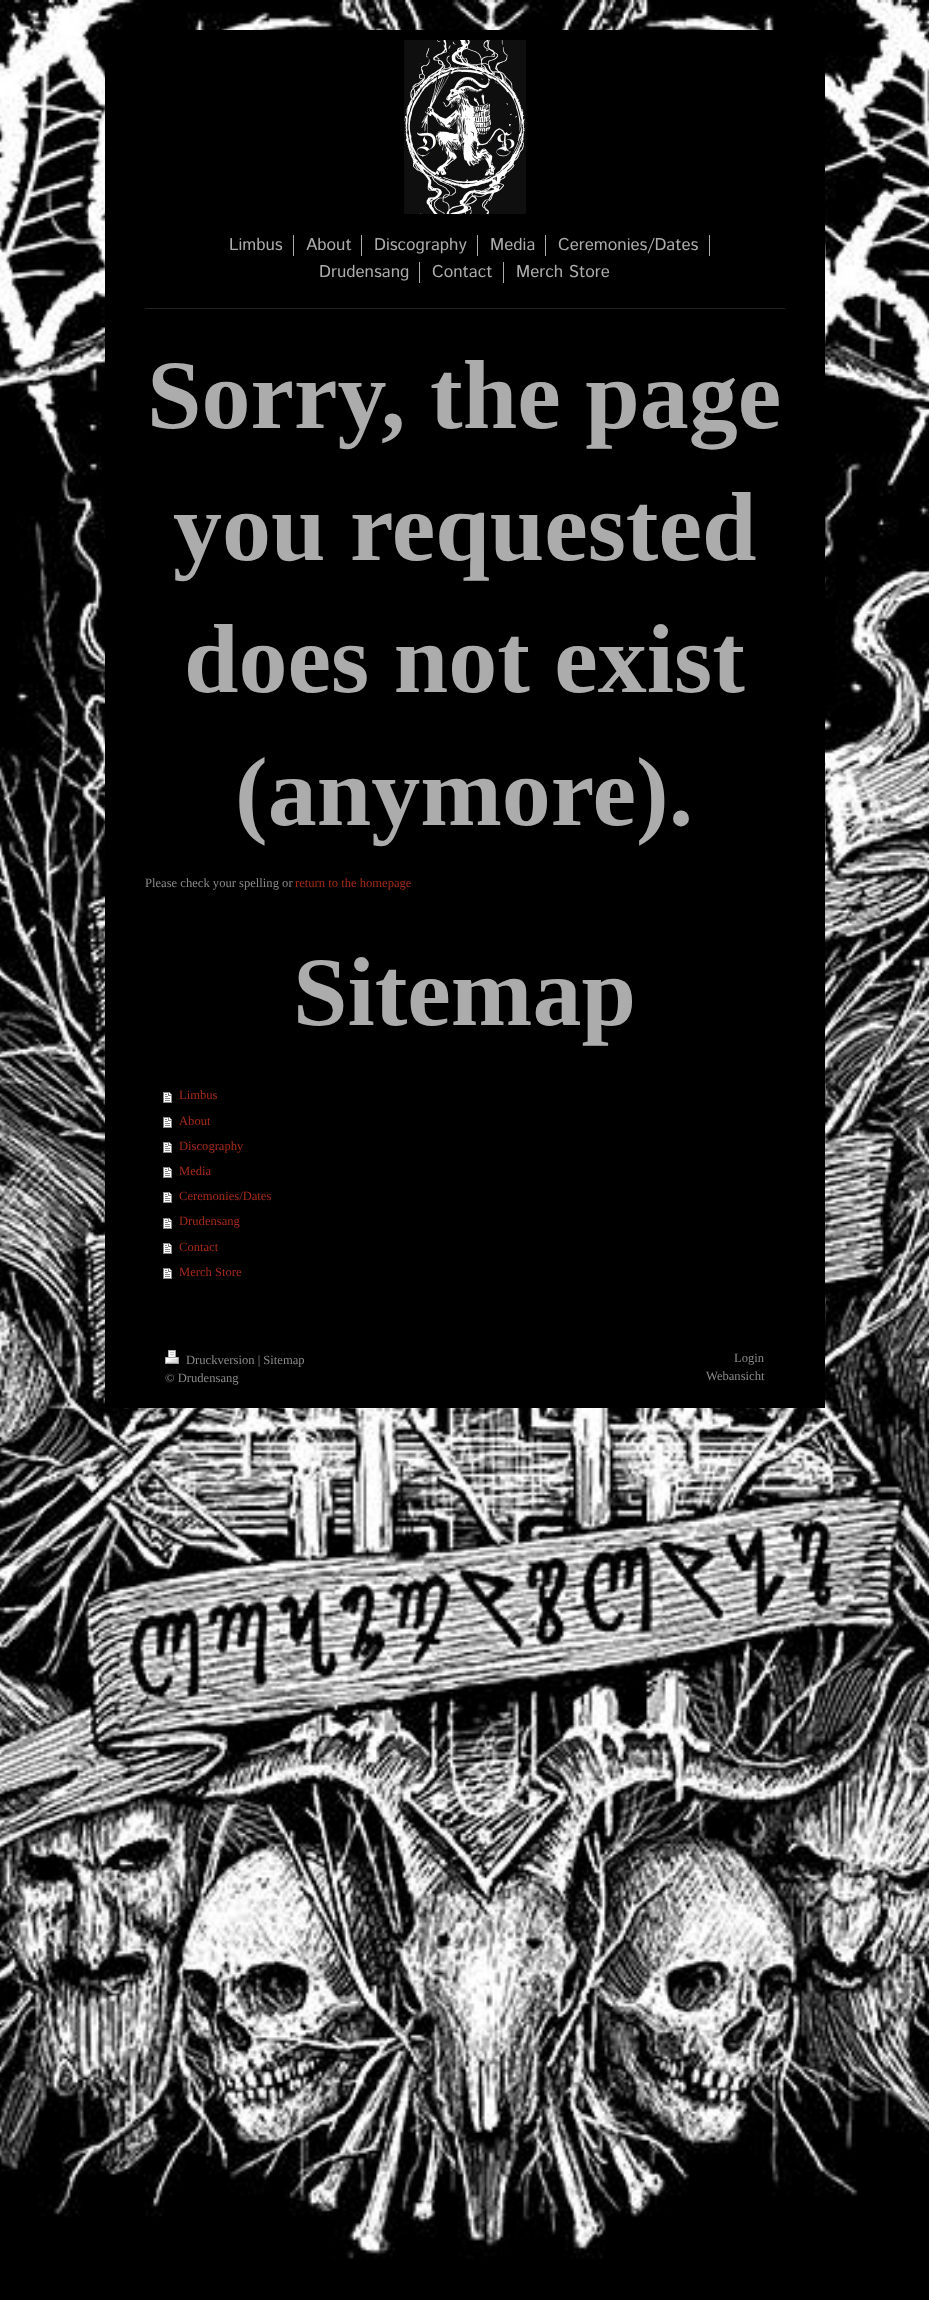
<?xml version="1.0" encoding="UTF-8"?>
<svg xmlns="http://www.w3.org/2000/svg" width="929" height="2300">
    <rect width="100%" height="100%" fill="#000000"/>
    <image x="0" y="0" width="929" height="2259" href="img_01.png"/>
    <rect x="105" y="30" width="720" height="1378" fill="#000000"/>
    <image x="404" y="40" width="122" height="174" href="img_02.png"/>
    <rect x="145" y="308" width="640" height="1" fill="#222222"/>
    <rect x="293" y="235" width="1" height="21" fill="#ACACAC"/>
    <text x="229" y="250" font-family="Istok Web" font-size="17" fill="#ACACAC">Limbus</text>
    <rect x="361" y="235" width="1" height="21" fill="#ACACAC"/>
    <text x="306" y="250" font-family="Istok Web" font-size="17" fill="#ACACAC">About</text>
    <rect x="477" y="235" width="1" height="21" fill="#ACACAC"/>
    <text x="374" y="250" font-family="Istok Web" font-size="17" fill="#ACACAC">Discography</text>
    <rect x="545" y="235" width="1" height="21" fill="#ACACAC"/>
    <text x="490" y="250" font-family="Istok Web" font-size="17" fill="#ACACAC">Media</text>
    <rect x="709" y="235" width="1" height="21" fill="#ACACAC"/>
    <text x="558" y="250" font-family="Istok Web" font-size="17" fill="#ACACAC">Ceremonies/Dates</text>
    <rect x="419" y="262" width="1" height="21" fill="#ACACAC"/>
    <text x="319" y="277" font-family="Istok Web" font-size="17" fill="#ACACAC">Drudensang</text>
    <rect x="503" y="262" width="1" height="21" fill="#ACACAC"/>
    <text x="432" y="277" font-family="Istok Web" font-size="17" fill="#ACACAC">Contact</text>
    <text x="516" y="277" font-family="Istok Web" font-size="17" fill="#ACACAC">Merch Store</text>
    <text x="147" y="428" font-family="Liberation Serif" font-size="98" font-weight="700" fill="#ACACAC">Sorry, the page</text>
    <text x="173" y="560" font-family="Liberation Serif" font-size="98" font-weight="700" fill="#ACACAC">you requested</text>
    <text x="184" y="692" font-family="Liberation Serif" font-size="98" font-weight="700" fill="#ACACAC">does not exist</text>
    <text x="235" y="825" font-family="Liberation Serif" font-size="98" font-weight="700" fill="#ACACAC">(anymore).</text>
    <text x="145" y="887" font-family="Liberation Serif" font-size="12.6" fill="#8A8A8A">Please check your spelling or</text>
    <text x="295" y="887" font-family="Liberation Serif" font-size="12.6" fill="#A52A1A">return to the homepage</text>
    <text x="293" y="1025" font-family="Liberation Serif" font-size="98" font-weight="700" fill="#ACACAC">Sitemap</text>
    <image x="163" y="1092" width="9" height="11" href="img_03.png"/>
    <text x="179" y="1099" font-family="Liberation Serif" font-size="12.6" fill="#A52A1A">Limbus</text>
    <image x="163" y="1117" width="9" height="11" href="img_03.png"/>
    <text x="179" y="1125" font-family="Liberation Serif" font-size="12.6" fill="#A52A1A">About</text>
    <image x="163" y="1142" width="9" height="11" href="img_03.png"/>
    <text x="179" y="1150" font-family="Liberation Serif" font-size="12.6" fill="#A52A1A">Discography</text>
    <image x="163" y="1167" width="9" height="11" href="img_03.png"/>
    <text x="179" y="1175" font-family="Liberation Serif" font-size="12.6" fill="#A52A1A">Media</text>
    <image x="163" y="1192" width="9" height="11" href="img_03.png"/>
    <text x="179" y="1200" font-family="Liberation Serif" font-size="12.6" fill="#A52A1A">Ceremonies/Dates</text>
    <image x="163" y="1218" width="9" height="11" href="img_03.png"/>
    <text x="179" y="1225" font-family="Liberation Serif" font-size="12.6" fill="#A52A1A">Drudensang</text>
    <image x="163" y="1243" width="9" height="11" href="img_03.png"/>
    <text x="179" y="1251" font-family="Liberation Serif" font-size="12.6" fill="#A52A1A">Contact</text>
    <image x="163" y="1268" width="9" height="11" href="img_03.png"/>
    <text x="179" y="1276" font-family="Liberation Serif" font-size="12.6" fill="#A52A1A">Merch Store</text>
    <image x="165" y="1350" width="14" height="14" href="img_04.png"/>
    <text x="186" y="1364" font-family="Liberation Serif" font-size="12.6" fill="#8A8A8A">Druckversion | Sitemap</text>
    <text x="165" y="1382" font-family="Liberation Serif" font-size="12.6" fill="#8A8A8A">© Drudensang</text>
    <text x="734" y="1362" font-family="Liberation Serif" font-size="12.6" fill="#8A8A8A">Login</text>
    <text x="706" y="1380" font-family="Liberation Serif" font-size="12.6" fill="#8A8A8A">Webansicht</text>
</svg>
